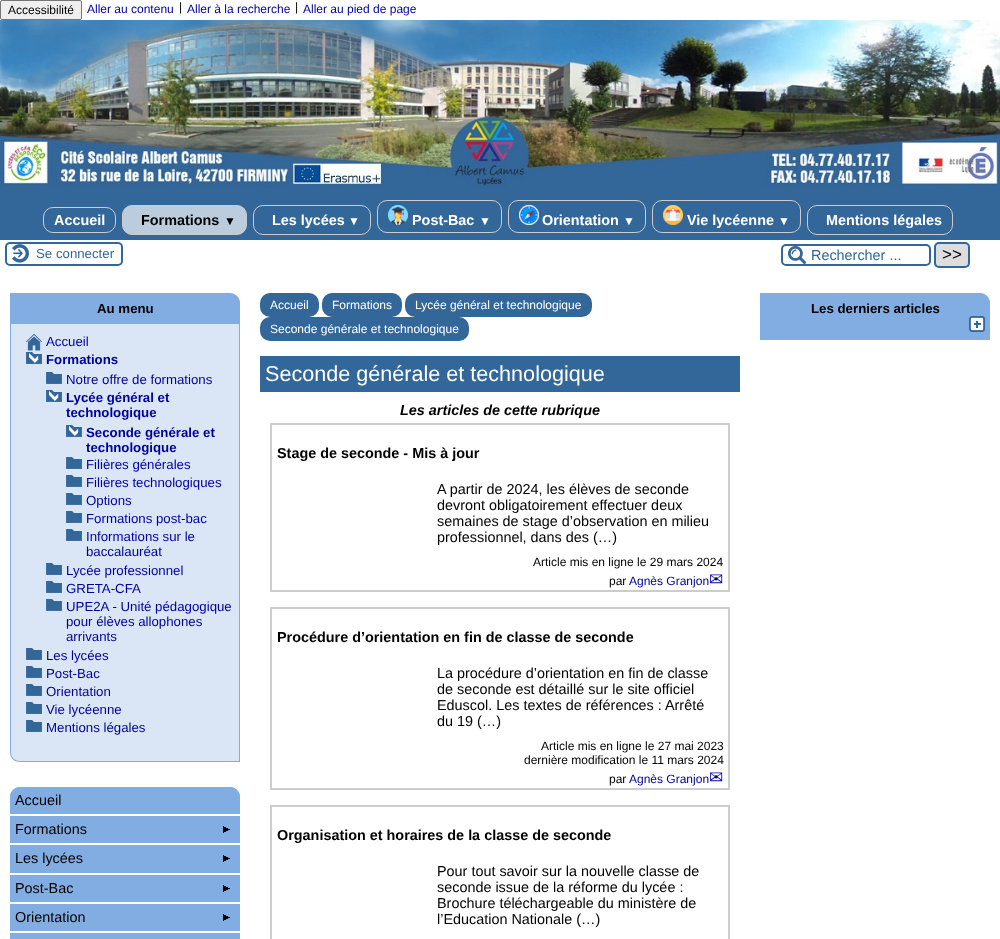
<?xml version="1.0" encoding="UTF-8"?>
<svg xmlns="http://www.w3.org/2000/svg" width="1000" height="939">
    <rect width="100%" height="100%" fill="#FFFFFF"/>
    <rect x="0" y="187" width="1000" height="53" fill="#336699"/>
    <rect x="0.5" y="0.5" width="81" height="19" rx="1.5" fill="#EFEFEF" stroke="#767676"/>
    <text x="8" y="14" font-family="Liberation Sans" font-size="12" fill="#000000">Accessibilité</text>
    <text x="87" y="13" font-family="Liberation Sans" font-size="12" fill="#000099">Aller au contenu</text>
    <text x="179" y="11" font-family="Liberation Sans" font-size="12" fill="#000000">|</text>
    <text x="187" y="13" font-family="Liberation Sans" font-size="12" fill="#000099">Aller à la recherche</text>
    <text x="295" y="11" font-family="Liberation Sans" font-size="12" fill="#000000">|</text>
    <text x="303" y="13" font-family="Liberation Sans" font-size="12" fill="#000099">Aller au pied de page</text>
    <image x="0" y="20" width="1000" height="167" href="img_01.png"/>
    <rect x="43.5" y="207.5" width="72" height="25" rx="9.5" fill="none" stroke="#CCCCCC"/>
    <text x="54" y="225" font-family="Liberation Sans" font-size="14.4" font-weight="700" fill="#FFFFFF">Accueil</text>
    <rect x="122.5" y="205.5" width="124" height="29" rx="9.5" fill="#BBCCDD" stroke="#CCCCCC"/>
    <text x="141" y="225" font-family="Liberation Sans" font-size="14.4" font-weight="700" fill="#000000">Formations</text>
    <text x="224" y="225" font-family="Liberation Sans" font-size="12" font-weight="700" fill="#000000">▼</text>
    <rect x="253.5" y="205.5" width="117" height="29" rx="9.5" fill="none" stroke="#CCCCCC"/>
    <text x="272" y="225" font-family="Liberation Sans" font-size="14.4" font-weight="700" fill="#FFFFFF">Les lycées</text>
    <text x="348" y="225" font-family="Liberation Sans" font-size="12" font-weight="700" fill="#FFFFFF">▼</text>
    <rect x="377.5" y="200.5" width="124" height="32" rx="9.5" fill="none" stroke="#CCCCCC"/>
    <image x="388" y="205" width="20" height="20" href="img_02.png"/>
    <text x="412" y="225" font-family="Liberation Sans" font-size="14.4" font-weight="700" fill="#FFFFFF">Post-Bac</text>
    <text x="479" y="225" font-family="Liberation Sans" font-size="12" font-weight="700" fill="#FFFFFF">▼</text>
    <rect x="508.5" y="200.5" width="137" height="32" rx="9.5" fill="none" stroke="#CCCCCC"/>
    <image x="519" y="205" width="20" height="20" href="img_03.png"/>
    <text x="542" y="225" font-family="Liberation Sans" font-size="14.4" font-weight="700" fill="#FFFFFF">Orientation</text>
    <text x="623" y="225" font-family="Liberation Sans" font-size="12" font-weight="700" fill="#FFFFFF">▼</text>
    <rect x="652.5" y="200.5" width="148" height="32" rx="9.5" fill="none" stroke="#CCCCCC"/>
    <image x="663" y="205" width="20" height="20" href="img_04.png"/>
    <text x="687" y="225" font-family="Liberation Sans" font-size="14.4" font-weight="700" fill="#FFFFFF">Vie lycéenne</text>
    <text x="778" y="225" font-family="Liberation Sans" font-size="12" font-weight="700" fill="#FFFFFF">▼</text>
    <rect x="807.5" y="205.5" width="145" height="29" rx="9.5" fill="none" stroke="#CCCCCC"/>
    <text x="826" y="225" font-family="Liberation Sans" font-size="14.4" font-weight="700" fill="#FFFFFF">Mentions légales</text>
    <image x="12" y="244" width="17" height="19" href="img_05.png"/>
    <rect x="6" y="243" width="116" height="22" rx="4" fill="none" stroke="#336699" stroke-width="2"/>
    <text x="36" y="258" font-family="Liberation Sans" font-size="13.25" fill="#336699">Se connecter</text>
    <image x="788" y="246" width="18" height="18" href="img_06.png"/>
    <rect x="782" y="245" width="148" height="20" rx="4" fill="none" stroke="#336699" stroke-width="2"/>
    <text x="811" y="260" font-family="Liberation Sans" font-size="14.4" fill="#336699">Rechercher ...</text>
    <rect x="935" y="243" width="34" height="24" rx="4" fill="#DDDDDD" stroke="#336699" stroke-width="2"/>
    <text x="942" y="260" font-family="Liberation Sans" font-size="17" fill="#000000">&gt;&gt;</text>
    <path d="M 10 293 H 230 C 235.5 293 240 297.5 240 303 V 324 H 10 Z" fill="#82ADE2"/>
    <text x="97" y="313" font-family="Liberation Sans" font-size="13.25" font-weight="700" fill="#000000">Au menu</text>
    <path d="M 11 324 H 239 V 761 H 20 C 15 761 11 757 11 752 Z" fill="#DAE6F6"/>
    <path d="M 10 324 H 240 V 762 H 20 C 14 762 10 758 10 752 Z M 11 324 H 239 V 761 H 20 C 15 761 11 757 11 752 Z" fill="#82ADE2" fill-rule="evenodd"/>
    <image x="26" y="334" width="16" height="17" href="img_07.png"/>
    <text x="46" y="346" font-family="Liberation Sans" font-size="13.25" fill="#000099">Accueil</text>
    <image x="26" y="352" width="16" height="12" href="img_08.png"/>
    <text x="46" y="364" font-family="Liberation Sans" font-size="13.25" font-weight="700" fill="#000099">Formations</text>
    <image x="46" y="372" width="16" height="12" href="img_09.png"/>
    <text x="66" y="384" font-family="Liberation Sans" font-size="13.25" fill="#000099">Notre offre de formations</text>
    <image x="46" y="390" width="16" height="12" href="img_08.png"/>
    <text font-family="Liberation Sans" font-size="13.25" font-weight="700" fill="#000099">
        <tspan x="66" y="402">Lycée général et</tspan>
        <tspan x="66" y="417">technologique</tspan>
    </text>
    <image x="66" y="425" width="16" height="12" href="img_08.png"/>
    <text font-family="Liberation Sans" font-size="13.25" font-weight="700" fill="#000099">
        <tspan x="86" y="437">Seconde générale et</tspan>
        <tspan x="86" y="452">technologique</tspan>
    </text>
    <image x="66" y="457" width="16" height="12" href="img_09.png"/>
    <text x="86" y="469" font-family="Liberation Sans" font-size="13.25" fill="#000099">Filières générales</text>
    <image x="66" y="475" width="16" height="12" href="img_09.png"/>
    <text x="86" y="487" font-family="Liberation Sans" font-size="13.25" fill="#000099">Filières technologiques</text>
    <image x="66" y="493" width="16" height="12" href="img_09.png"/>
    <text x="86" y="505" font-family="Liberation Sans" font-size="13.25" fill="#000099">Options</text>
    <image x="66" y="511" width="16" height="12" href="img_09.png"/>
    <text x="86" y="523" font-family="Liberation Sans" font-size="13.25" fill="#000099">Formations post-bac</text>
    <image x="66" y="529" width="16" height="12" href="img_09.png"/>
    <text font-family="Liberation Sans" font-size="13.25" fill="#000099">
        <tspan x="86" y="541">Informations sur le</tspan>
        <tspan x="86" y="556">baccalauréat</tspan>
    </text>
    <image x="46" y="563" width="16" height="12" href="img_09.png"/>
    <text x="66" y="575" font-family="Liberation Sans" font-size="13.25" fill="#000099">Lycée professionnel</text>
    <image x="46" y="581" width="16" height="12" href="img_09.png"/>
    <text x="66" y="593" font-family="Liberation Sans" font-size="13.25" fill="#000099">GRETA-CFA</text>
    <image x="46" y="599" width="16" height="12" href="img_09.png"/>
    <text font-family="Liberation Sans" font-size="13.25" fill="#000099">
        <tspan x="66" y="611">UPE2A - Unité pédagogique</tspan>
        <tspan x="66" y="626">pour élèves allophones</tspan>
        <tspan x="66" y="641">arrivants</tspan>
    </text>
    <image x="26" y="648" width="16" height="12" href="img_09.png"/>
    <text x="46" y="660" font-family="Liberation Sans" font-size="13.25" fill="#000099">Les lycées</text>
    <image x="26" y="666" width="16" height="12" href="img_09.png"/>
    <text x="46" y="678" font-family="Liberation Sans" font-size="13.25" fill="#000099">Post-Bac</text>
    <image x="26" y="684" width="16" height="12" href="img_09.png"/>
    <text x="46" y="696" font-family="Liberation Sans" font-size="13.25" fill="#000099">Orientation</text>
    <image x="26" y="702" width="16" height="12" href="img_09.png"/>
    <text x="46" y="714" font-family="Liberation Sans" font-size="13.25" fill="#000099">Vie lycéenne</text>
    <image x="26" y="720" width="16" height="12" href="img_09.png"/>
    <text x="46" y="732" font-family="Liberation Sans" font-size="13.25" fill="#000099">Mentions légales</text>
    <rect x="10" y="787" width="230" height="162" rx="10" fill="#82ADE2"/>
    <rect x="10" y="814" width="230" height="2" fill="#FFFFFF"/>
    <path d="M 20 787 H 230 C 235.5 787 240 791.5 240 797 V 814 H 10 V 797 C 10 791.5 14.5 787 20 787 Z" fill="#82ADE2"/>
    <text x="15" y="805" font-family="Liberation Sans" font-size="14.4" fill="#000000">Accueil</text>
    <rect x="10" y="843" width="230" height="2" fill="#FFFFFF"/>
    <text x="15" y="834" font-family="Liberation Sans" font-size="14.4" fill="#000000">Formations</text>
    <image x="223" y="826" width="7" height="7" href="img_10.png"/>
    <rect x="10" y="873" width="230" height="2" fill="#FFFFFF"/>
    <text x="15" y="863" font-family="Liberation Sans" font-size="14.4" fill="#000000">Les lycées</text>
    <image x="223" y="855" width="7" height="7" href="img_10.png"/>
    <rect x="10" y="902" width="230" height="2" fill="#FFFFFF"/>
    <text x="15" y="893" font-family="Liberation Sans" font-size="14.4" fill="#000000">Post-Bac</text>
    <image x="223" y="885" width="7" height="7" href="img_10.png"/>
    <rect x="10" y="931" width="230" height="2" fill="#FFFFFF"/>
    <text x="15" y="922" font-family="Liberation Sans" font-size="14.4" fill="#000000">Orientation</text>
    <image x="223" y="914" width="7" height="7" href="img_10.png"/>
    <rect x="260" y="293" width="59" height="24" rx="10" fill="#336699"/>
    <text x="270" y="309" font-family="Liberation Sans" font-size="12" fill="#FFFFFF">Accueil</text>
    <rect x="322" y="293" width="80" height="24" rx="10" fill="#336699"/>
    <text x="332" y="309" font-family="Liberation Sans" font-size="12" fill="#FFFFFF">Formations</text>
    <rect x="405" y="293" width="187" height="24" rx="10" fill="#336699"/>
    <text x="415" y="309" font-family="Liberation Sans" font-size="12" fill="#FFFFFF">Lycée général et technologique</text>
    <rect x="260" y="317" width="209" height="24" rx="10" fill="#336699"/>
    <text x="270" y="333" font-family="Liberation Sans" font-size="12" fill="#FFFFFF">Seconde générale et technologique</text>
    <rect x="260" y="356" width="480" height="36" fill="#336699"/>
    <text x="265" y="381" font-family="Liberation Sans" font-size="21.6" fill="#FFFFFF">Seconde générale et technologique</text>
    <text x="400" y="415" font-family="Liberation Sans" font-size="14.4" font-weight="700" font-style="italic" fill="#000000">Les articles de cette rubrique</text>
    <rect x="271" y="424" width="458" height="167" fill="none" stroke="#CCCCCC" stroke-width="2"/>
    <text x="277" y="458" font-family="Liberation Sans" font-size="14.4" font-weight="700" fill="#000000">Stage de seconde - Mis à jour</text>
    <text font-family="Liberation Sans" font-size="14.4" fill="#000000">
        <tspan x="437" y="494">A partir de 2024, les élèves de seconde</tspan>
        <tspan x="437" y="510">devront obligatoirement effectuer deux</tspan>
        <tspan x="437" y="526">semaines de stage d’observation en milieu</tspan>
        <tspan x="437" y="542">professionnel, dans des (…)</tspan>
    </text>
    <text x="533" y="566" font-family="Liberation Sans" font-size="12" fill="#000000">Article mis en ligne le 29 mars 2024</text>
    <text x="609" y="585" font-family="Liberation Sans" font-size="12" fill="#000000">par</text>
    <text x="629" y="585" font-family="Liberation Sans" font-size="12" fill="#000099">Agnès Granjon</text>
    <text x="709" y="585" font-family="DejaVu Sans" font-size="17" fill="#000099">✉</text>
    <rect x="271" y="608" width="458" height="181" fill="none" stroke="#CCCCCC" stroke-width="2"/>
    <text x="277" y="642" font-family="Liberation Sans" font-size="14.4" font-weight="700" fill="#000000">Procédure d’orientation en fin de classe de seconde</text>
    <text font-family="Liberation Sans" font-size="14.4" fill="#000000">
        <tspan x="437" y="678">La procédure d’orientation en fin de classe</tspan>
        <tspan x="437" y="694">de seconde est détaillé sur le site officiel</tspan>
        <tspan x="437" y="710">Eduscol. Les textes de références : Arrêté</tspan>
        <tspan x="437" y="726">du 19 (…)</tspan>
    </text>
    <text x="541" y="750" font-family="Liberation Sans" font-size="12" fill="#000000">Article mis en ligne le 27 mai 2023</text>
    <text x="524" y="764" font-family="Liberation Sans" font-size="12" fill="#000000">dernière modification le 11 mars 2024</text>
    <text x="609" y="783" font-family="Liberation Sans" font-size="12" fill="#000000">par</text>
    <text x="629" y="783" font-family="Liberation Sans" font-size="12" fill="#000099">Agnès Granjon</text>
    <text x="709" y="783" font-family="DejaVu Sans" font-size="17" fill="#000099">✉</text>
    <rect x="271" y="806" width="458" height="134" fill="none" stroke="#CCCCCC" stroke-width="2"/>
    <text x="277" y="840" font-family="Liberation Sans" font-size="14.4" font-weight="700" fill="#000000">Organisation et horaires de la classe de seconde</text>
    <text font-family="Liberation Sans" font-size="14.4" fill="#000000">
        <tspan x="437" y="876">Pour tout savoir sur la nouvelle classe de</tspan>
        <tspan x="437" y="892">seconde issue de la réforme du lycée :</tspan>
        <tspan x="437" y="908">Brochure téléchargeable du ministère de</tspan>
        <tspan x="437" y="924">l’Education Nationale (…)</tspan>
    </text>
    <path d="M 760 293 H 980 C 985.5 293 990 297.5 990 303 V 340 H 760 Z" fill="#82ADE2"/>
    <text x="811" y="313" font-family="Liberation Sans" font-size="13.25" font-weight="700" fill="#000000">Les derniers articles</text>
    <image x="969" y="316" width="16" height="16" href="img_11.png"/>
</svg>
